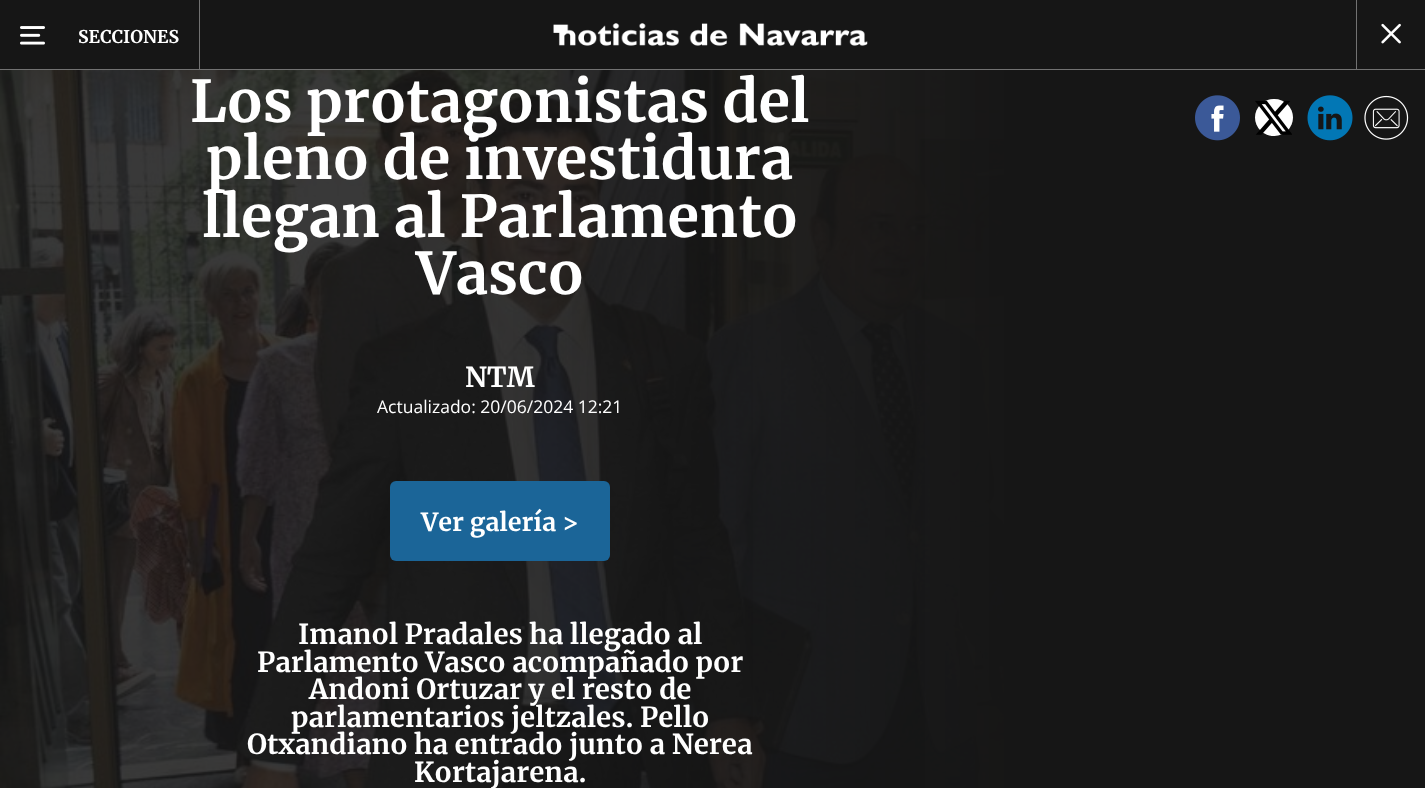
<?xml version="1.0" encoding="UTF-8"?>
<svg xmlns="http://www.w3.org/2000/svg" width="1425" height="788">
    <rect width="100%" height="100%" fill="#161616"/>
    <rect x="199" y="0" width="1" height="70" fill="#727272"/>
    <image x="20" y="26" width="25" height="19" href="img_01.png"/>
    <text x="78" y="43" font-family="Merriweather" font-size="17.5" font-weight="700" fill="#FFFFFF">SECCIONES</text>
    <image x="553" y="23" width="315" height="23" href="img_02.png"/>
    <rect x="1356" y="0" width="1" height="69" fill="#727272"/>
    <image x="1381" y="23" width="20" height="21" href="img_03.png"/>
    <rect x="0" y="69" width="1425" height="1" fill="#727272"/>
    <image x="0" y="70" width="1425" height="718" href="img_04.png"/>
    <text x="190" y="122" font-family="Merriweather" font-size="57.5" font-weight="700" fill="#FFFFFF">Los protagonistas del</text>
    <text x="206" y="179" font-family="Merriweather" font-size="57.5" font-weight="700" fill="#FFFFFF">pleno de investidura</text>
    <text x="202" y="237" font-family="Merriweather" font-size="57.5" font-weight="700" fill="#FFFFFF">llegan al Parlamento</text>
    <text x="416" y="294" font-family="Merriweather" font-size="57.5" font-weight="700" fill="#FFFFFF">Vasco</text>
    <text x="465" y="387" font-family="Merriweather" font-size="27.5" font-weight="700" fill="#FFFFFF">NTM</text>
    <text x="377" y="413" font-family="Open Sans" font-size="17.5" fill="#FFFFFF">Actualizado: 20/06/2024 12:21</text>
    <rect x="390" y="481" width="220" height="80" rx="6" fill="#1B6598"/>
    <text x="421" y="531" font-family="Merriweather" font-size="25" font-weight="700" fill="#FFFFFF">Ver galería &gt;</text>
    <text x="298" y="644" font-family="Merriweather" font-size="27.5" font-weight="700" fill="#FFFFFF">Imanol Pradales ha llegado al</text>
    <text x="257" y="672" font-family="Merriweather" font-size="27.5" font-weight="700" fill="#FFFFFF">Parlamento Vasco acompañado por</text>
    <text x="309" y="699" font-family="Merriweather" font-size="27.5" font-weight="700" fill="#FFFFFF">Andoni Ortuzar y el resto de</text>
    <text x="291" y="727" font-family="Merriweather" font-size="27.5" font-weight="700" fill="#FFFFFF">parlamentarios jeltzales. Pello</text>
    <text x="247" y="754" font-family="Merriweather" font-size="27.5" font-weight="700" fill="#FFFFFF">Otxandiano ha entrado junto a Nerea</text>
    <text x="414" y="782" font-family="Merriweather" font-size="27.5" font-weight="700" fill="#FFFFFF">Kortajarena.</text>
    <circle cx="1217.5" cy="117.5" r="18.5" fill="#FFFFFF"/>
    <image x="1195" y="95" width="45" height="46" href="img_05.png"/>
    <rect x="1255" y="99" width="38" height="37" rx="18.5" fill="#FFFFFF"/>
    <image x="1255" y="100" width="37" height="35" href="img_06.png"/>
    <image x="1307" y="95" width="46" height="46" href="img_07.png"/>
    <image x="1364" y="95" width="45" height="45" href="img_08.png"/>
</svg>
